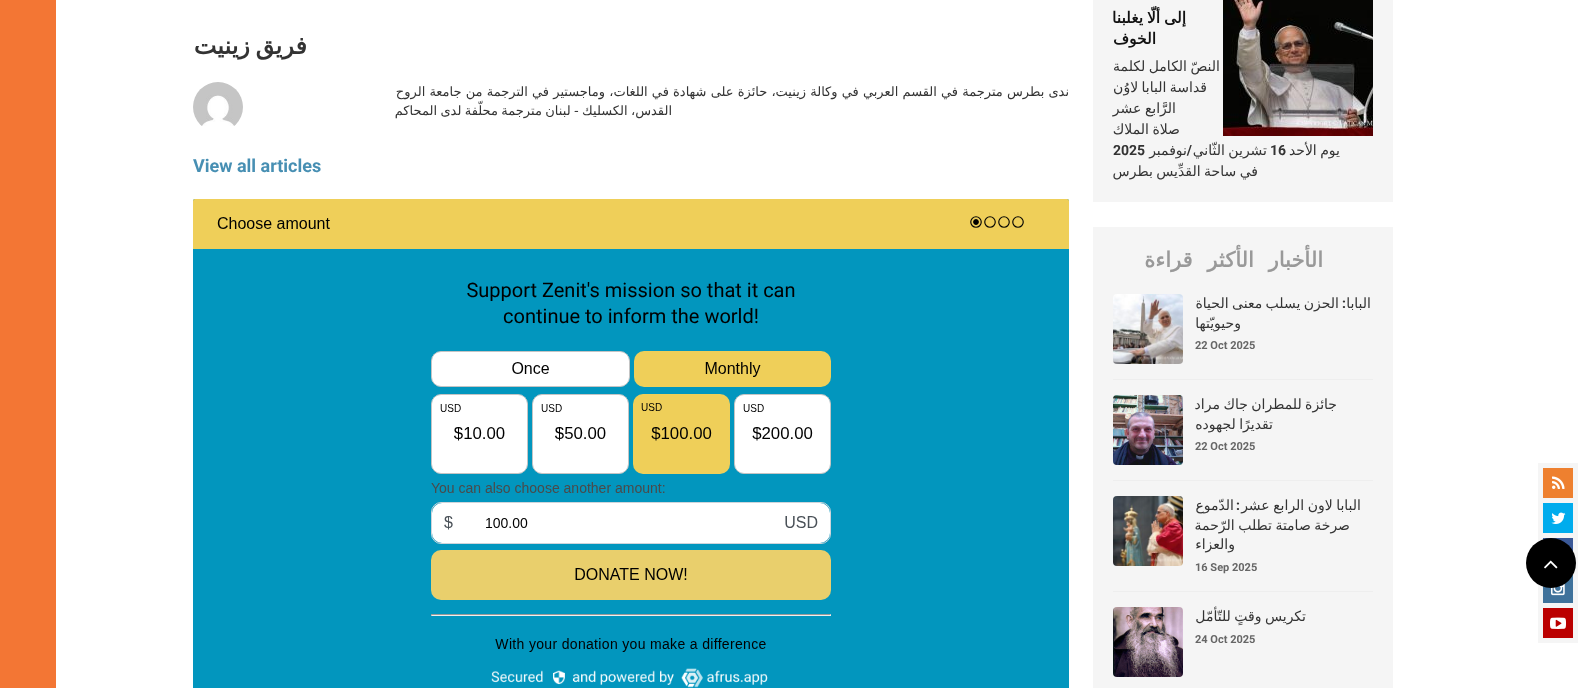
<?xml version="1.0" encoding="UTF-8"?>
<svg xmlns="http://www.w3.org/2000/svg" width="1586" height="688">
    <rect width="100%" height="100%" fill="#FFFFFF"/>
    <rect x="1538" y="463" width="40" height="180" fill="#F5F5F5"/>
    <rect x="1543" y="468" width="30" height="30" fill="#EE802F"/>
    <image x="1552" y="476" width="13" height="13" href="img_01.png"/>
    <rect x="1543" y="503" width="30" height="30" fill="#00ACED"/>
    <image x="1551" y="512" width="15" height="12" href="img_02.png"/>
    <rect x="1543" y="538" width="30" height="13" fill="#3B5998"/>
    <rect x="1543" y="575" width="30" height="28" fill="#3F729B"/>
    <image x="1551" y="583" width="14" height="13" href="img_03.png"/>
    <rect x="1543" y="608" width="30" height="30" fill="#BB0000"/>
    <image x="1550" y="617" width="16" height="12" href="img_04.png"/>
    <rect x="1093" y="0" width="300" height="202" fill="#F5F5F5"/>
    <image x="1223" y="0" width="150" height="136" href="img_05.png"/>
    <text x="1186" y="23" word-spacing="-1" font-family="DejaVu Sans" font-size="15.5" font-weight="700" direction="rtl" fill="#111111">إلى ألّا يغلبنا</text>
    <text x="1156" y="44" font-family="DejaVu Sans" font-size="15.5" font-weight="700" direction="rtl" fill="#111111">الخوف</text>
    <text x="1220" y="71" word-spacing="-1" font-family="DejaVu Sans" font-size="14" direction="rtl" fill="#333333">النصّ الكامل لكلمة</text>
    <text x="1207" y="92" word-spacing="-1" font-family="DejaVu Sans" font-size="14" direction="rtl" fill="#333333">قداسة البابا لاوُن</text>
    <text x="1176" y="113" word-spacing="-1" font-family="DejaVu Sans" font-size="14" direction="rtl" fill="#333333">الرَّابع عشر</text>
    <text x="1180" y="134" word-spacing="-1" font-family="DejaVu Sans" font-size="14" direction="rtl" fill="#333333">صلاة الملاك</text>
    <text x="1340" y="155" word-spacing="-1" font-family="DejaVu Sans" font-size="14" direction="rtl" fill="#333333">يوم الأحد</text>
    <text x="1270" y="155" font-family="Roboto" font-size="14" font-weight="700" fill="#333333">16</text>
    <text x="1267" y="155" word-spacing="-1" font-family="DejaVu Sans" font-size="14" direction="rtl" fill="#333333">تشرين الثّاني</text>
    <text x="1192" y="155" font-family="Roboto" font-size="14" font-weight="700" direction="rtl" fill="#333333">/</text>
    <text x="1187" y="155" font-family="DejaVu Sans" font-size="14" direction="rtl" fill="#333333">نوفمبر</text>
    <text x="1113" y="155" font-family="Roboto" font-size="14" font-weight="700" fill="#333333">2025</text>
    <text x="1258" y="176" word-spacing="-1" font-family="DejaVu Sans" font-size="14" direction="rtl" fill="#333333">في ساحة القدِّيس بطرس</text>
    <rect x="1093" y="227" width="300" height="461" fill="#F5F5F5"/>
    <text x="1323" y="267" word-spacing="8" font-family="DejaVu Sans" font-size="21" font-weight="700" letter-spacing="-1" direction="rtl" fill="#999999">الأخبار الأكثر قراءة</text>
    <rect x="1113" y="379" width="260" height="1" fill="#EEEEEE"/>
    <text x="1371" y="308" font-family="DejaVu Sans" font-size="14" direction="rtl" fill="#333333">البابا</text>
    <text x="1346" y="308" font-family="Roboto" font-size="14" font-weight="700" direction="rtl" fill="#333333">:</text>
    <text x="1339" y="308" word-spacing="-1" font-family="DejaVu Sans" font-size="14" direction="rtl" fill="#333333">الحزن يسلب معنى الحياة</text>
    <text x="1241" y="328" font-family="DejaVu Sans" font-size="14" direction="rtl" fill="#333333">وحيويّتها</text>
    <text x="1195" y="349" font-family="Roboto" font-size="11" font-weight="700" fill="#666666">22 Oct 2025</text>
    <image x="1113" y="294" width="70" height="70" href="img_06.png"/>
    <rect x="1113" y="480" width="260" height="1" fill="#EEEEEE"/>
    <text x="1337" y="409" word-spacing="-1" font-family="DejaVu Sans" font-size="14" direction="rtl" fill="#333333">جائزة للمطران جاك مراد</text>
    <text x="1273" y="429" word-spacing="-1" font-family="DejaVu Sans" font-size="14" direction="rtl" fill="#333333">تقديرًا لجهوده</text>
    <text x="1195" y="450" font-family="Roboto" font-size="11" font-weight="700" fill="#666666">22 Oct 2025</text>
    <image x="1113" y="395" width="70" height="70" href="img_07.png"/>
    <rect x="1113" y="591" width="260" height="1" fill="#EEEEEE"/>
    <text x="1240" y="510" font-family="Roboto" font-size="14" font-weight="700" direction="rtl" fill="#333333">:</text>
    <text x="1361" y="510" word-spacing="-1" font-family="DejaVu Sans" font-size="14" direction="rtl" fill="#333333">البابا لاون الرابع عشر</text>
    <text x="1234" y="510" font-family="DejaVu Sans" font-size="14" direction="rtl" fill="#333333">الدّموع</text>
    <text x="1350" y="530" word-spacing="-1" font-family="DejaVu Sans" font-size="14" direction="rtl" fill="#333333">صرخة صامتة تطلب الرّحمة</text>
    <text x="1235" y="549" font-family="DejaVu Sans" font-size="14" direction="rtl" fill="#333333">والعزاء</text>
    <text x="1195" y="571" font-family="Roboto" font-size="11" font-weight="700" fill="#666666">16 Sep 2025</text>
    <image x="1113" y="496" width="70" height="70" href="img_08.png"/>
    <text x="1306" y="621" word-spacing="-1" font-family="DejaVu Sans" font-size="14" direction="rtl" fill="#333333">تكريس وقتٍ للتّأمّل</text>
    <text x="1195" y="643" font-family="Roboto" font-size="11" font-weight="700" fill="#666666">24 Oct 2025</text>
    <image x="1113" y="607" width="70" height="70" href="img_09.png"/>
    <text x="307" y="54" word-spacing="-2" font-family="DejaVu Sans" font-size="24" font-weight="700" direction="rtl" fill="#333333">فريق زينيت</text>
    <text x="1069" y="96" font-family="DejaVu Sans" font-size="13" direction="rtl" fill="#333333">ندى بطرس مترجمة في القسم العربي في وكالة زينيت، حائزة على شهادة في اللغات، وماجستير في الترجمة من جامعة الروح</text>
    <text x="672" y="115" word-spacing="-0.75" font-family="DejaVu Sans" font-size="13" direction="rtl" fill="#333333">القدس، الكسليك - لبنان مترجمة محلّفة لدى المحاكم</text>
    <image x="193" y="82" width="50" height="44" href="img_10.png"/>
    <text x="193" y="172" font-family="Roboto" font-size="18" font-weight="700" fill="#478FB3">View all articles</text>
    <image x="193" y="199" width="876" height="489" href="img_11.png"/>
    <rect x="0" y="0" width="56" height="688" fill="#F37634"/>
    <circle cx="1551" cy="563" r="25" fill="#000000"/>
    <image x="1544" y="560" width="14" height="9" href="img_12.png"/>
</svg>
